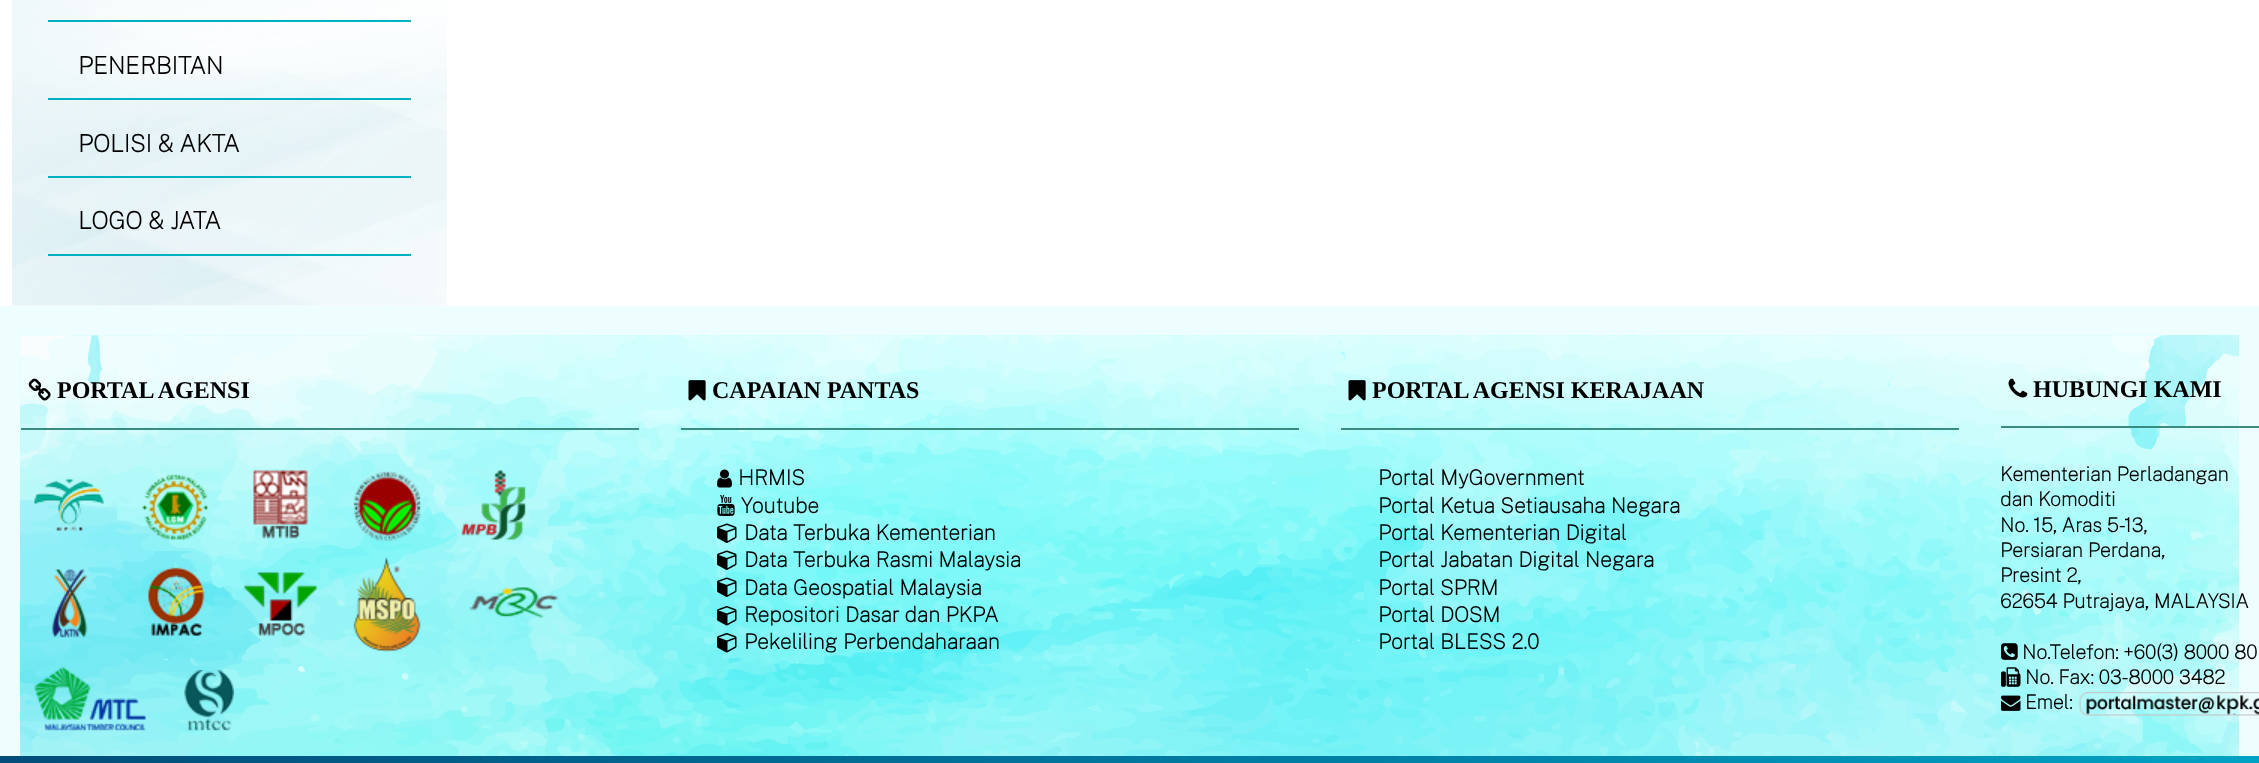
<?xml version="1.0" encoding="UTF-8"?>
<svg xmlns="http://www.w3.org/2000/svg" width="2259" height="763">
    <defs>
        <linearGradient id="g1" gradientUnits="userSpaceOnUse" x1="0" y1="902" x2="2259" y2="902"><stop offset="0" stop-color="#020024"/><stop offset="0" stop-color="#00BFA0"/><stop offset="0" stop-color="#024D79"/><stop offset="1" stop-color="#00A2C3"/></linearGradient>
    </defs>
    <rect width="100%" height="100%" fill="#FFFFFF"/>
    <image x="12" y="0" width="435" height="306" href="img_01.png"/>
    <rect x="48" y="20" width="363" height="2" fill="#00B1C3"/>
    <rect x="48" y="98" width="363" height="2" fill="#00B1C3"/>
    <text x="78" y="74" font-family="Public Sans" font-size="24" font-weight="700" fill="#000000">PENERBITAN</text>
    <rect x="48" y="176" width="363" height="2" fill="#00B1C3"/>
    <text x="78" y="152" font-family="Public Sans" font-size="24" font-weight="700" fill="#000000">POLISI &amp; AKTA</text>
    <rect x="48" y="254" width="363" height="2" fill="#00B1C3"/>
    <text x="78" y="229" font-family="Public Sans" font-size="24" font-weight="700" fill="#000000">LOGO &amp; JATA</text>
    <rect x="0" y="306" width="2259" height="450" fill="#EEFDFE"/>
    <image x="20" y="335" width="2219" height="421" href="img_02.png"/>
    <rect x="21" y="428" width="618" height="2" fill="#3B8C80"/>
    <image x="28" y="378" width="23" height="23" href="img_03.png"/>
    <text x="57" y="398" font-family="Liberation Serif" font-size="24" font-weight="700" fill="#000000">PORTAL AGENSI</text>
    <image x="34" y="479" width="70" height="52" href="img_04.png"/>
    <image x="142" y="474" width="66" height="66" href="img_05.png"/>
    <image x="253" y="470" width="55" height="69" href="img_06.png"/>
    <image x="353" y="471" width="68" height="70" href="img_07.png"/>
    <image x="461" y="470" width="65" height="70" href="img_08.png"/>
    <image x="52" y="569" width="36" height="69" href="img_09.png"/>
    <image x="147" y="567" width="58" height="69" href="img_10.png"/>
    <image x="244" y="572" width="73" height="64" href="img_11.png"/>
    <image x="353" y="557" width="68" height="95" href="img_12.png"/>
    <image x="469" y="587" width="90" height="31" href="img_13.png"/>
    <image x="34" y="666" width="112" height="65" href="img_14.png"/>
    <image x="184" y="670" width="50" height="61" href="img_15.png"/>
    <rect x="681" y="428" width="618" height="2" fill="#3B8C80"/>
    <image x="688" y="380" width="18" height="21" href="img_16.png"/>
    <text x="712" y="398" font-family="Liberation Serif" font-size="24" font-weight="700" fill="#000000">CAPAIAN PANTAS</text>
    <image x="717" y="469" width="15" height="19" href="img_17.png"/>
    <text x="738" y="485" font-family="Public Sans" font-size="21" font-weight="700" fill="#000000">HRMIS</text>
    <image x="717" y="495" width="18" height="21" href="img_18.png"/>
    <text x="741" y="513" font-family="Public Sans" font-size="21" font-weight="700" fill="#000000">Youtube</text>
    <image x="717" y="523" width="20" height="20" href="img_19.png"/>
    <text x="744" y="540" font-family="Public Sans" font-size="21" font-weight="700" fill="#000000">Data Terbuka Kementerian</text>
    <image x="717" y="550" width="20" height="20" href="img_20.png"/>
    <text x="744" y="567" font-family="Public Sans" font-size="21" font-weight="700" fill="#000000">Data Terbuka Rasmi Malaysia</text>
    <image x="717" y="577" width="20" height="20" href="img_21.png"/>
    <text x="744" y="595" font-family="Public Sans" font-size="21" font-weight="700" fill="#000000">Data Geospatial Malaysia</text>
    <image x="717" y="606" width="20" height="20" href="img_22.png"/>
    <text x="744" y="622" font-family="Public Sans" font-size="21" font-weight="700" fill="#000000">Repositori Dasar dan PKPA</text>
    <image x="717" y="633" width="20" height="20" href="img_23.png"/>
    <text x="744" y="649" font-family="Public Sans" font-size="21" font-weight="700" fill="#000000">Pekeliling Perbendaharaan</text>
    <rect x="1341" y="428" width="618" height="2" fill="#3B8C80"/>
    <image x="1348" y="380" width="18" height="21" href="img_24.png"/>
    <text x="1372" y="398" font-family="Liberation Serif" font-size="24" font-weight="700" fill="#000000">PORTAL AGENSI KERAJAAN</text>
    <text font-family="Public Sans" font-size="21" font-weight="700" fill="#000000">
        <tspan x="1378" y="485">Portal MyGovernment</tspan>
        <tspan x="1378" y="513">Portal Ketua Setiausaha Negara</tspan>
        <tspan x="1378" y="540">Portal Kementerian Digital</tspan>
        <tspan x="1378" y="567">Portal Jabatan Digital Negara</tspan>
        <tspan x="1378" y="595">Portal SPRM</tspan>
        <tspan x="1378" y="622">Portal DOSM</tspan>
        <tspan x="1378" y="649">Portal BLESS 2.0</tspan>
    </text>
    <rect x="2001" y="426" width="258" height="2" fill="#3B8C80"/>
    <image x="2008" y="378" width="20" height="20" href="img_25.png"/>
    <text x="2033" y="397" font-family="Liberation Serif" font-size="24" font-weight="700" fill="#000000">HUBUNGI KAMI</text>
    <text font-family="Public Sans" font-size="19.5" font-weight="700" fill="#000000">
        <tspan x="2000" y="481">Kementerian Perladangan</tspan>
        <tspan x="2000" y="506">dan Komoditi</tspan>
        <tspan x="2000" y="532">No. 15, Aras 5-13,</tspan>
        <tspan x="2000" y="557">Persiaran Perdana,</tspan>
        <tspan x="2000" y="582">Presint 2,</tspan>
        <tspan x="2000" y="608">62654 Putrajaya, MALAYSIA</tspan>
    </text>
    <image x="2001" y="643" width="17" height="17" href="img_26.png"/>
    <text x="2022" y="659" font-family="Public Sans" font-size="19.5" font-weight="700" fill="#000000">No.Telefon: +60(3) 8000 80</text>
    <image x="2001" y="667" width="20" height="20" href="img_27.png"/>
    <text x="2025" y="684" font-family="Public Sans" font-size="19.5" font-weight="700" fill="#000000">No. Fax: 03-8000 3482</text>
    <image x="2001" y="695" width="20" height="16" href="img_28.png"/>
    <text x="2025" y="709" font-family="Public Sans" font-size="19.5" font-weight="700" fill="#000000">Emel:</text>
    <image x="2079" y="692" width="180" height="24" href="img_29.png"/>
    <rect x="0" y="756" width="2259" height="7" fill="url(#g1)"/>
</svg>
